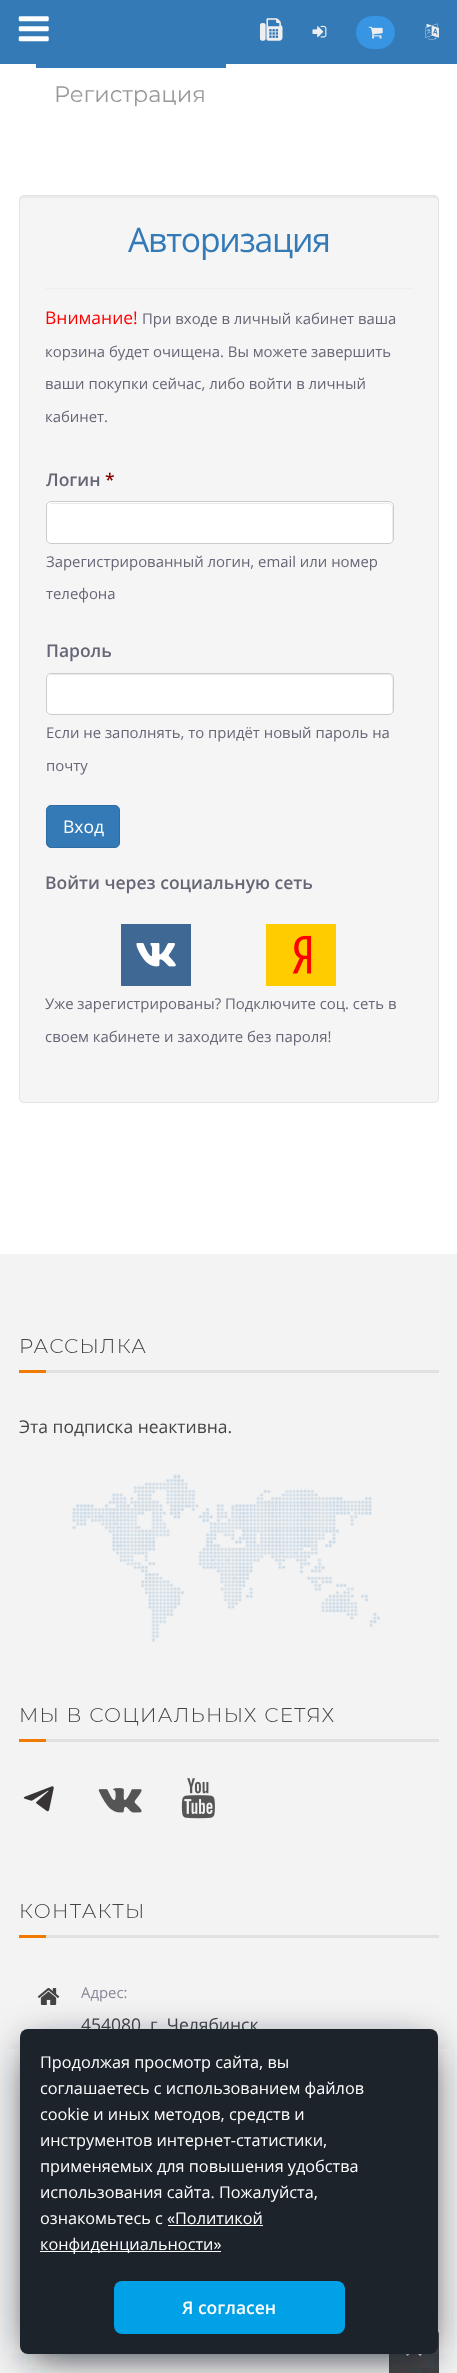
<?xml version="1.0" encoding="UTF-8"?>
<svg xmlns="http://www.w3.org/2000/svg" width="457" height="2373">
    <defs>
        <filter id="blur1" x="-50%" y="-200%" width="200%" height="500%"><feGaussianBlur stdDeviation="20"/></filter>
    </defs>
    <rect width="100%" height="100%" fill="#FFFFFF"/>
    <rect x="0" y="0" width="457" height="64" fill="#337AB7"/>
    <image x="18" y="16" width="31" height="26" href="img_01.png"/>
    <image x="260" y="18" width="23" height="23" href="img_02.png"/>
    <image x="312" y="25" width="15" height="13" href="img_03.png"/>
    <rect x="356" y="16" width="39" height="33" rx="16.5" fill="#3895E4"/>
    <image x="368" y="26" width="15" height="13" href="img_04.png"/>
    <image x="425" y="23" width="14" height="17" href="img_05.png"/>
    <rect x="36" y="64" width="190" height="4" fill="#337AB7"/>
    <text x="54" y="102" font-family="Montserrat" font-size="22.5" fill="#999999">Регистрация</text>
    <rect x="19" y="195" width="420" height="908" rx="5" fill="#F5F5F5"/>
    <path d="M 24 198 H 434 C 436 198 438 199 438 201 V 200 C 438 198 436 196 434 196 H 24 C 22 196 20 198 20 200 V 201 C 20 199 22 198 24 198 Z" fill="#E9E9E9"/>
    <rect x="19.5" y="195.5" width="419" height="907" rx="4.5" fill="none" stroke="#E3E3E3"/>
    <text x="128" y="252" font-family="Open Sans" font-size="33.75" letter-spacing="-1.25" fill="#337AB7">Авторизация</text>
    <rect x="45" y="288" width="368" height="1" fill="#EEEEEE"/>
    <text x="45" y="324" font-family="Open Sans" font-size="17.5" fill="#FF0000">Внимание!</text>
    <text x="142" y="324" font-family="Open Sans" font-size="14.9" fill="#666677">При входе в личный кабинет ваша</text>
    <text x="45" y="357" font-family="Open Sans" font-size="14.9" fill="#666677">корзина будет очищена. Вы можете завершить</text>
    <text x="45" y="389" font-family="Open Sans" font-size="14.9" fill="#666677">ваши покупки сейчас, либо войти в личный</text>
    <text x="45" y="422" font-family="Open Sans" font-size="14.9" fill="#666677">кабинет.</text>
    <text x="46" y="486" font-family="Open Sans" font-size="17.5" font-weight="600" fill="#666677">Логин</text>
    <text x="105" y="486" font-family="Open Sans" font-size="17.5" font-weight="600" fill="#8B0000">*</text>
    <rect x="46" y="501" width="348" height="43" rx="5" fill="#FFFFFF"/>
    <path d="M 51 504 H 389 C 391 504 392 505 392 508 V 542 C 392 541 393 540 393 539 V 507 C 393 505 391 503 389 503 H 52 C 50 503 48 505 48 507 V 508 C 48 505 49 504 51 504 Z" fill="#ECECEC"/>
    <rect x="46.5" y="501.5" width="347" height="42" rx="4.5" fill="none" stroke="#CCCCCC"/>
    <text x="46" y="567" font-family="Open Sans" font-size="14.9" fill="#666677">Зарегистрированный логин, email или номер</text>
    <text x="46" y="599" font-family="Open Sans" font-size="14.9" fill="#666677">телефона</text>
    <text x="46" y="657" font-family="Open Sans" font-size="17.5" font-weight="600" fill="#666677">Пароль</text>
    <rect x="46" y="673" width="348" height="42" rx="5" fill="#FFFFFF"/>
    <path d="M 51 675 H 389 C 394 675 392 688 392 690 V 713 C 392 712 393 711 393 710 V 678 C 393 676 391 674 389 674 H 52 C 50 674 48 676 48 678 V 679 C 48 677 49 675 51 675 Z" fill="#ECECEC"/>
    <rect x="46.5" y="673.5" width="347" height="41" rx="4.5" fill="none" stroke="#CCCCCC"/>
    <text x="46" y="738" font-family="Open Sans" font-size="14.9" fill="#666677">Если не заполнять, то придёт новый пароль на</text>
    <text x="46" y="771" font-family="Open Sans" font-size="14.9" fill="#666677">почту</text>
    <rect x="46.5" y="805.5" width="73" height="42" rx="4.5" fill="#337AB7" stroke="#2E6DA4"/>
    <text x="63" y="833" font-family="Open Sans" font-size="17.5" fill="#FFFFFF">Вход</text>
    <text x="45" y="889" font-family="Open Sans" font-size="17.5" font-weight="600" fill="#666677">Войти через социальную сеть</text>
    <rect x="121" y="924" width="70" height="62" fill="#3F6895"/>
    <image x="136" y="943" width="40" height="24" href="img_06.png"/>
    <rect x="266" y="924" width="70" height="62" fill="#FFCC00"/>
    <image x="292" y="935" width="20" height="39" href="img_07.png"/>
    <text x="45" y="1009" font-family="Open Sans" font-size="14.9" fill="#666677">Уже зарегистрированы? Подключите соц. сеть в</text>
    <text x="45" y="1042" font-family="Open Sans" font-size="14.9" fill="#666677">своем кабинете и заходите без пароля!</text>
    <rect x="0" y="1254" width="457" height="1119" fill="#F3F3F3"/>
    <image x="72" y="1474" width="308" height="168" href="img_08.png"/>
    <rect x="46" y="1370" width="393" height="3" fill="#E1E1E1"/>
    <text x="19" y="1353" font-family="Montserrat" font-size="20" font-weight="300" letter-spacing="1.25" fill="#444444">РАССЫЛКА</text>
    <rect x="19" y="1370" width="27" height="3" fill="#F07A00"/>
    <text x="19" y="1433" font-family="Open Sans" font-size="17.5" fill="#444444">Эта подписка неактивна.</text>
    <rect x="46" y="1739" width="393" height="3" fill="#E1E1E1"/>
    <text x="19" y="1722" font-family="Montserrat" font-size="20" font-weight="300" letter-spacing="1.25" fill="#444444">МЫ В СОЦИАЛЬНЫХ СЕТЯХ</text>
    <rect x="19" y="1739" width="27" height="3" fill="#F07A00"/>
    <image x="23" y="1786" width="31" height="26" href="img_09.png"/>
    <image x="98" y="1788" width="44" height="25" href="img_10.png"/>
    <image x="181" y="1778" width="34" height="41" href="img_11.png"/>
    <rect x="46" y="1935" width="393" height="3" fill="#E1E1E1"/>
    <text x="19" y="1918" font-family="Montserrat" font-size="20" font-weight="300" letter-spacing="1.25" fill="#444444">КОНТАКТЫ</text>
    <rect x="19" y="1935" width="27" height="3" fill="#F07A00"/>
    <image x="37" y="1988" width="23" height="17" href="img_12.png"/>
    <text x="81" y="1998" font-family="Open Sans" font-size="14.9" fill="#888899">Адрес:</text>
    <text x="81" y="2031" font-family="Open Sans" font-size="17.5" fill="#444444">454080, г. Челябинск</text>
    <path d="M 393 2330 H 435 C 437 2330 439 2332 439 2334 V 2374 H 389 V 2334 C 389 2332 391 2330 393 2330 Z" fill="#434347"/>
    <image x="406" y="2354" width="16" height="2" href="img_13.png"/>
    <rect x="30" y="2049" width="398" height="305" fill="#1C232B" filter="url(#blur1)"/>
    <rect x="20" y="2029" width="418" height="325" rx="8" fill="#1C232B"/>
    <text font-family="Open Sans" font-size="16.25" fill="#FFFFFF">
        <tspan x="40" y="2068">Продолжая просмотр сайта, вы</tspan>
        <tspan x="40" y="2094">соглашаетесь с использованием файлов</tspan>
        <tspan x="40" y="2120">cookie и иных методов, средств и</tspan>
        <tspan x="40" y="2146">инструментов интернет-статистики,</tspan>
        <tspan x="40" y="2172">применяемых для повышения удобства</tspan>
        <tspan x="40" y="2198">использования сайта. Пожалуйста,</tspan>
        <tspan x="40" y="2224">ознакомьтесь с «Политикой</tspan>
    </text>
    <rect x="40" y="2251" width="181" height="1" fill="#FFFFFF"/>
    <text x="40" y="2250" font-family="Open Sans" font-size="16.25" fill="#FFFFFF">конфиденциальности»</text>
    <rect x="168" y="2225" width="95" height="1" fill="#FFFFFF"/>
    <rect x="114" y="2281" width="231" height="53" rx="8" fill="#00A1E7"/>
    <text x="182" y="2314" font-family="Open Sans" font-size="17.5" font-weight="600" fill="#FFFFFF">Я согласен</text>
</svg>
